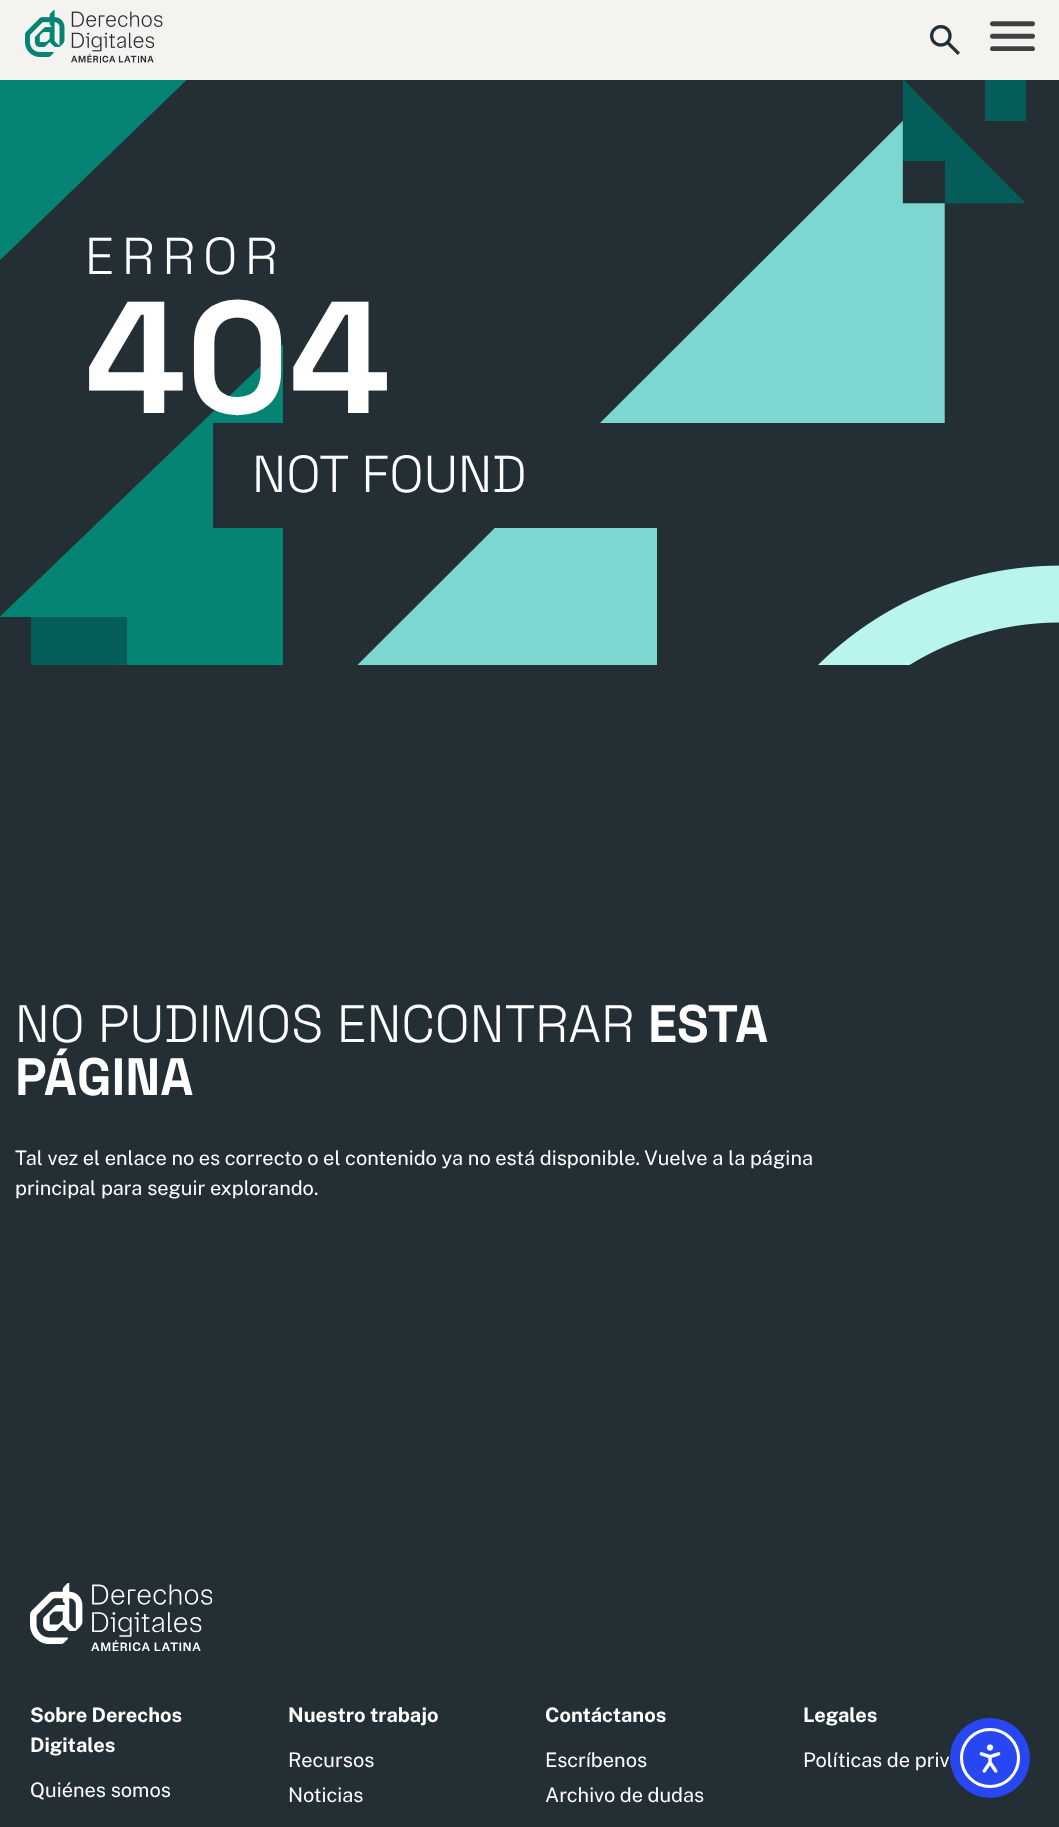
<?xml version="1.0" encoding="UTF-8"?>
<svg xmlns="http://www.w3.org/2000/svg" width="1059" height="1827">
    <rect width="100%" height="100%" fill="#232E35"/>
    <rect x="0" y="0" width="1059" height="80" fill="#F5F3EF"/>
    <image x="25" y="10" width="138" height="53" href="img_01.png"/>
    <image x="930" y="25" width="30" height="30" href="img_02.png"/>
    <image x="990" y="21" width="45" height="30" href="img_03.png"/>
    <image x="0" y="80" width="1059" height="585" href="img_04.png"/>
    <text x="85" y="274" font-family="Space Grotesk" font-size="51.75" font-weight="300" letter-spacing="7.75" fill="#FFFFFF">ERROR</text>
    <text x="85" y="413" font-family="Space Grotesk" font-size="159" font-weight="700" fill="#FFFFFF">404</text>
    <rect x="213" y="423" width="732" height="105" fill="#232E35"/>
    <text x="252" y="492" font-family="Space Grotesk" font-size="51.75" font-weight="300" fill="#FFFFFF">NOT FOUND</text>
    <text x="15" y="1042" font-family="Space Grotesk" font-size="52.4" font-weight="300" fill="#FFFFFF">NO PUDIMOS ENCONTRAR</text>
    <text x="648" y="1042" font-family="Space Grotesk" font-size="52.4" font-weight="700" fill="#FFFFFF">ESTA</text>
    <text x="15" y="1095" font-family="Space Grotesk" font-size="52.4" font-weight="700" fill="#FFFFFF">PÁGINA</text>
    <text font-family="Public Sans" font-size="20" fill="#FFFFFF">
        <tspan x="15" y="1165">Tal vez el enlace no es correcto o el contenido ya no está disponible. Vuelve a la página</tspan>
        <tspan x="15" y="1195">principal para seguir explorando.</tspan>
    </text>
    <image x="30" y="1583" width="183" height="68" href="img_05.png"/>
    <text font-family="Public Sans" font-size="20" font-weight="700" fill="#FFFFFF">
        <tspan x="30" y="1722">Sobre Derechos</tspan>
        <tspan x="30" y="1752">Digitales</tspan>
    </text>
    <text x="30" y="1797" font-family="Public Sans" font-size="20" fill="#FFFFFF">Quiénes somos</text>
    <text x="288" y="1722" font-family="Public Sans" font-size="20" font-weight="700" fill="#FFFFFF">Nuestro trabajo</text>
    <text font-family="Public Sans" font-size="20" fill="#FFFFFF">
        <tspan x="288" y="1767">Recursos</tspan>
        <tspan x="288" y="1802">Noticias</tspan>
    </text>
    <text x="545" y="1722" font-family="Public Sans" font-size="20" font-weight="700" fill="#FFFFFF">Contáctanos</text>
    <text font-family="Public Sans" font-size="20" fill="#FFFFFF">
        <tspan x="545" y="1767">Escríbenos</tspan>
        <tspan x="545" y="1802">Archivo de dudas</tspan>
    </text>
    <text x="803" y="1722" font-family="Public Sans" font-size="20" font-weight="700" fill="#FFFFFF">Legales</text>
    <text x="803" y="1767" font-family="Public Sans" font-size="20" fill="#FFFFFF">Políticas de priv</text>
    <circle cx="990" cy="1758" r="40" fill="#2847F3"/>
    <circle cx="990" cy="1758" r="28.5" fill="none" stroke="#FFFFFF" stroke-width="3"/>
    <image x="979" y="1744" width="22" height="29" href="img_06.png"/>
</svg>
